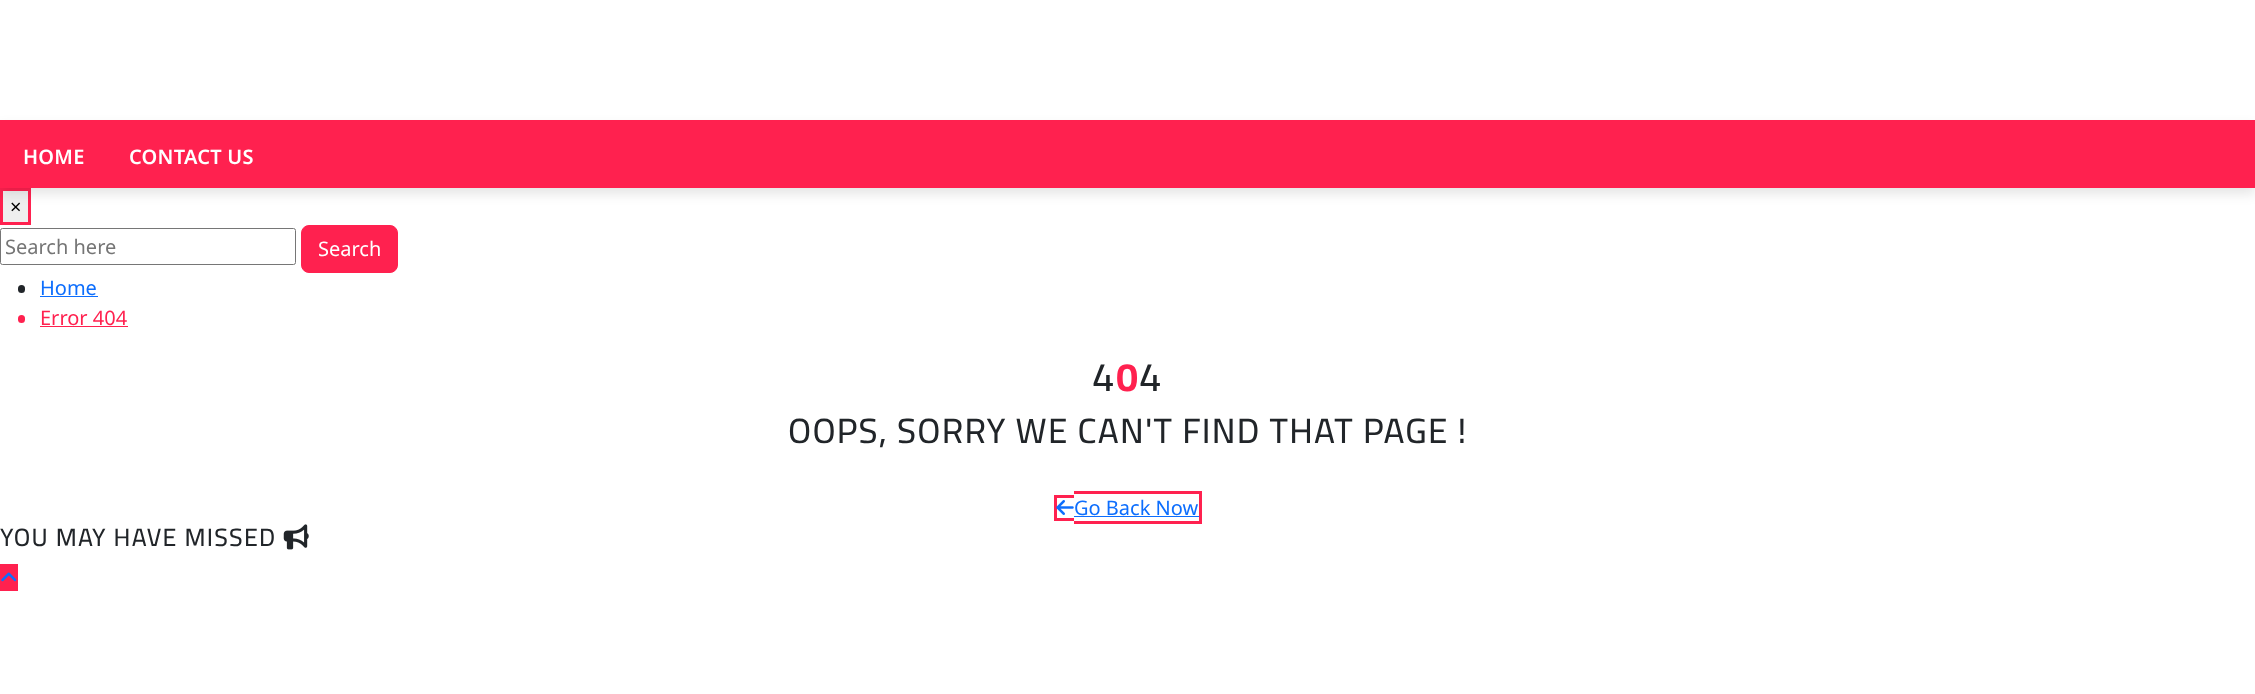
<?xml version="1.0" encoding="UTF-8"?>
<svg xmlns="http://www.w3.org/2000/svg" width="2255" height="694">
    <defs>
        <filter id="blur1" x="-50%" y="-200%" width="200%" height="500%"><feGaussianBlur stdDeviation="6"/></filter>
    </defs>
    <rect width="100%" height="100%" fill="#FFFFFF"/>
    <rect x="1.5" y="189.5" width="28" height="34" fill="#EFEFEF" stroke="#FF214F" stroke-width="3"/>
    <rect x="0" y="126" width="2255" height="68" fill="#000000" fill-opacity="0.1" filter="url(#blur1)"/>
    <rect x="0" y="120" width="2255" height="68" fill="#FF214F"/>
    <text x="23" y="164" font-family="Noto Sans" font-size="20" font-weight="600" letter-spacing="0.25" fill="#FFFFFF">HOME</text>
    <text x="129" y="164" font-family="Noto Sans" font-size="20" font-weight="600" letter-spacing="0.25" fill="#FFFFFF">CONTACT US</text>
    <text x="10" y="214" font-family="Noto Sans" font-size="20" fill="#000000">×</text>
    <rect x="0.5" y="228.5" width="295" height="36" rx="2" fill="none" stroke="#767676"/>
    <text x="5" y="254" font-family="Noto Sans" font-size="20" fill="#757575">Search here</text>
    <rect x="301.5" y="225.5" width="96" height="47" rx="7.5" fill="#FF214F" stroke="#FF214F"/>
    <text x="318" y="256" font-family="Noto Sans" font-size="20" fill="#FFFFFF">Search</text>
    <rect x="18" y="285" width="7" height="8" rx="3.5" fill="#212529"/>
    <text x="40" y="295" font-family="Noto Sans" font-size="20" fill="#0D6EFD">Home</text>
    <rect x="40" y="296" width="58" height="1" fill="#0D6EFD"/>
    <rect x="18" y="315" width="7" height="8" rx="3.5" fill="#FF214F"/>
    <text x="40" y="325" font-family="Noto Sans" font-size="20" fill="#FF214F">Error 404</text>
    <rect x="40" y="326" width="88" height="1" fill="#FF214F"/>
    <text x="1092" y="391" font-family="Cairo" font-size="40" font-weight="500" letter-spacing="1.25" fill="#212529">4</text>
    <text x="1116" y="391" font-family="Cairo" font-size="40" font-weight="700" letter-spacing="1.25" fill="#FF214F">0</text>
    <text x="1139" y="391" font-family="Cairo" font-size="40" font-weight="500" letter-spacing="1.25" fill="#212529">4</text>
    <text x="788" y="443" font-family="Cairo" font-size="35" font-weight="500" letter-spacing="1.25" fill="#212529">OOPS, SORRY WE CAN'T FIND THAT PAGE !</text>
    <rect x="1054" y="495" width="20" height="3" fill="#FF214F"/>
    <rect x="1054" y="518" width="20" height="3" fill="#FF214F"/>
    <rect x="1054" y="495" width="3" height="25" fill="#FF214F"/>
    <rect x="1074" y="491" width="127" height="3" fill="#FF214F"/>
    <rect x="1199" y="491" width="3" height="33" fill="#FF214F"/>
    <rect x="1074" y="521" width="127" height="3" fill="#FF214F"/>
    <image x="1056" y="500" width="18" height="15" href="img_01.png"/>
    <text x="1074" y="515" font-family="Noto Sans" font-size="20" fill="#0D6EFD">Go Back Now</text>
    <rect x="1074" y="516" width="125" height="1" fill="#0D6EFD"/>
    <text x="0" y="546" font-family="Cairo" font-size="25" font-weight="500" letter-spacing="1.25" fill="#212529">YOU MAY HAVE MISSED</text>
    <image x="283" y="524" width="26" height="26" href="img_02.png"/>
    <rect x="0" y="564" width="18" height="27" fill="#FF214F"/>
    <image x="1" y="572" width="16" height="10" href="img_03.png"/>
</svg>
